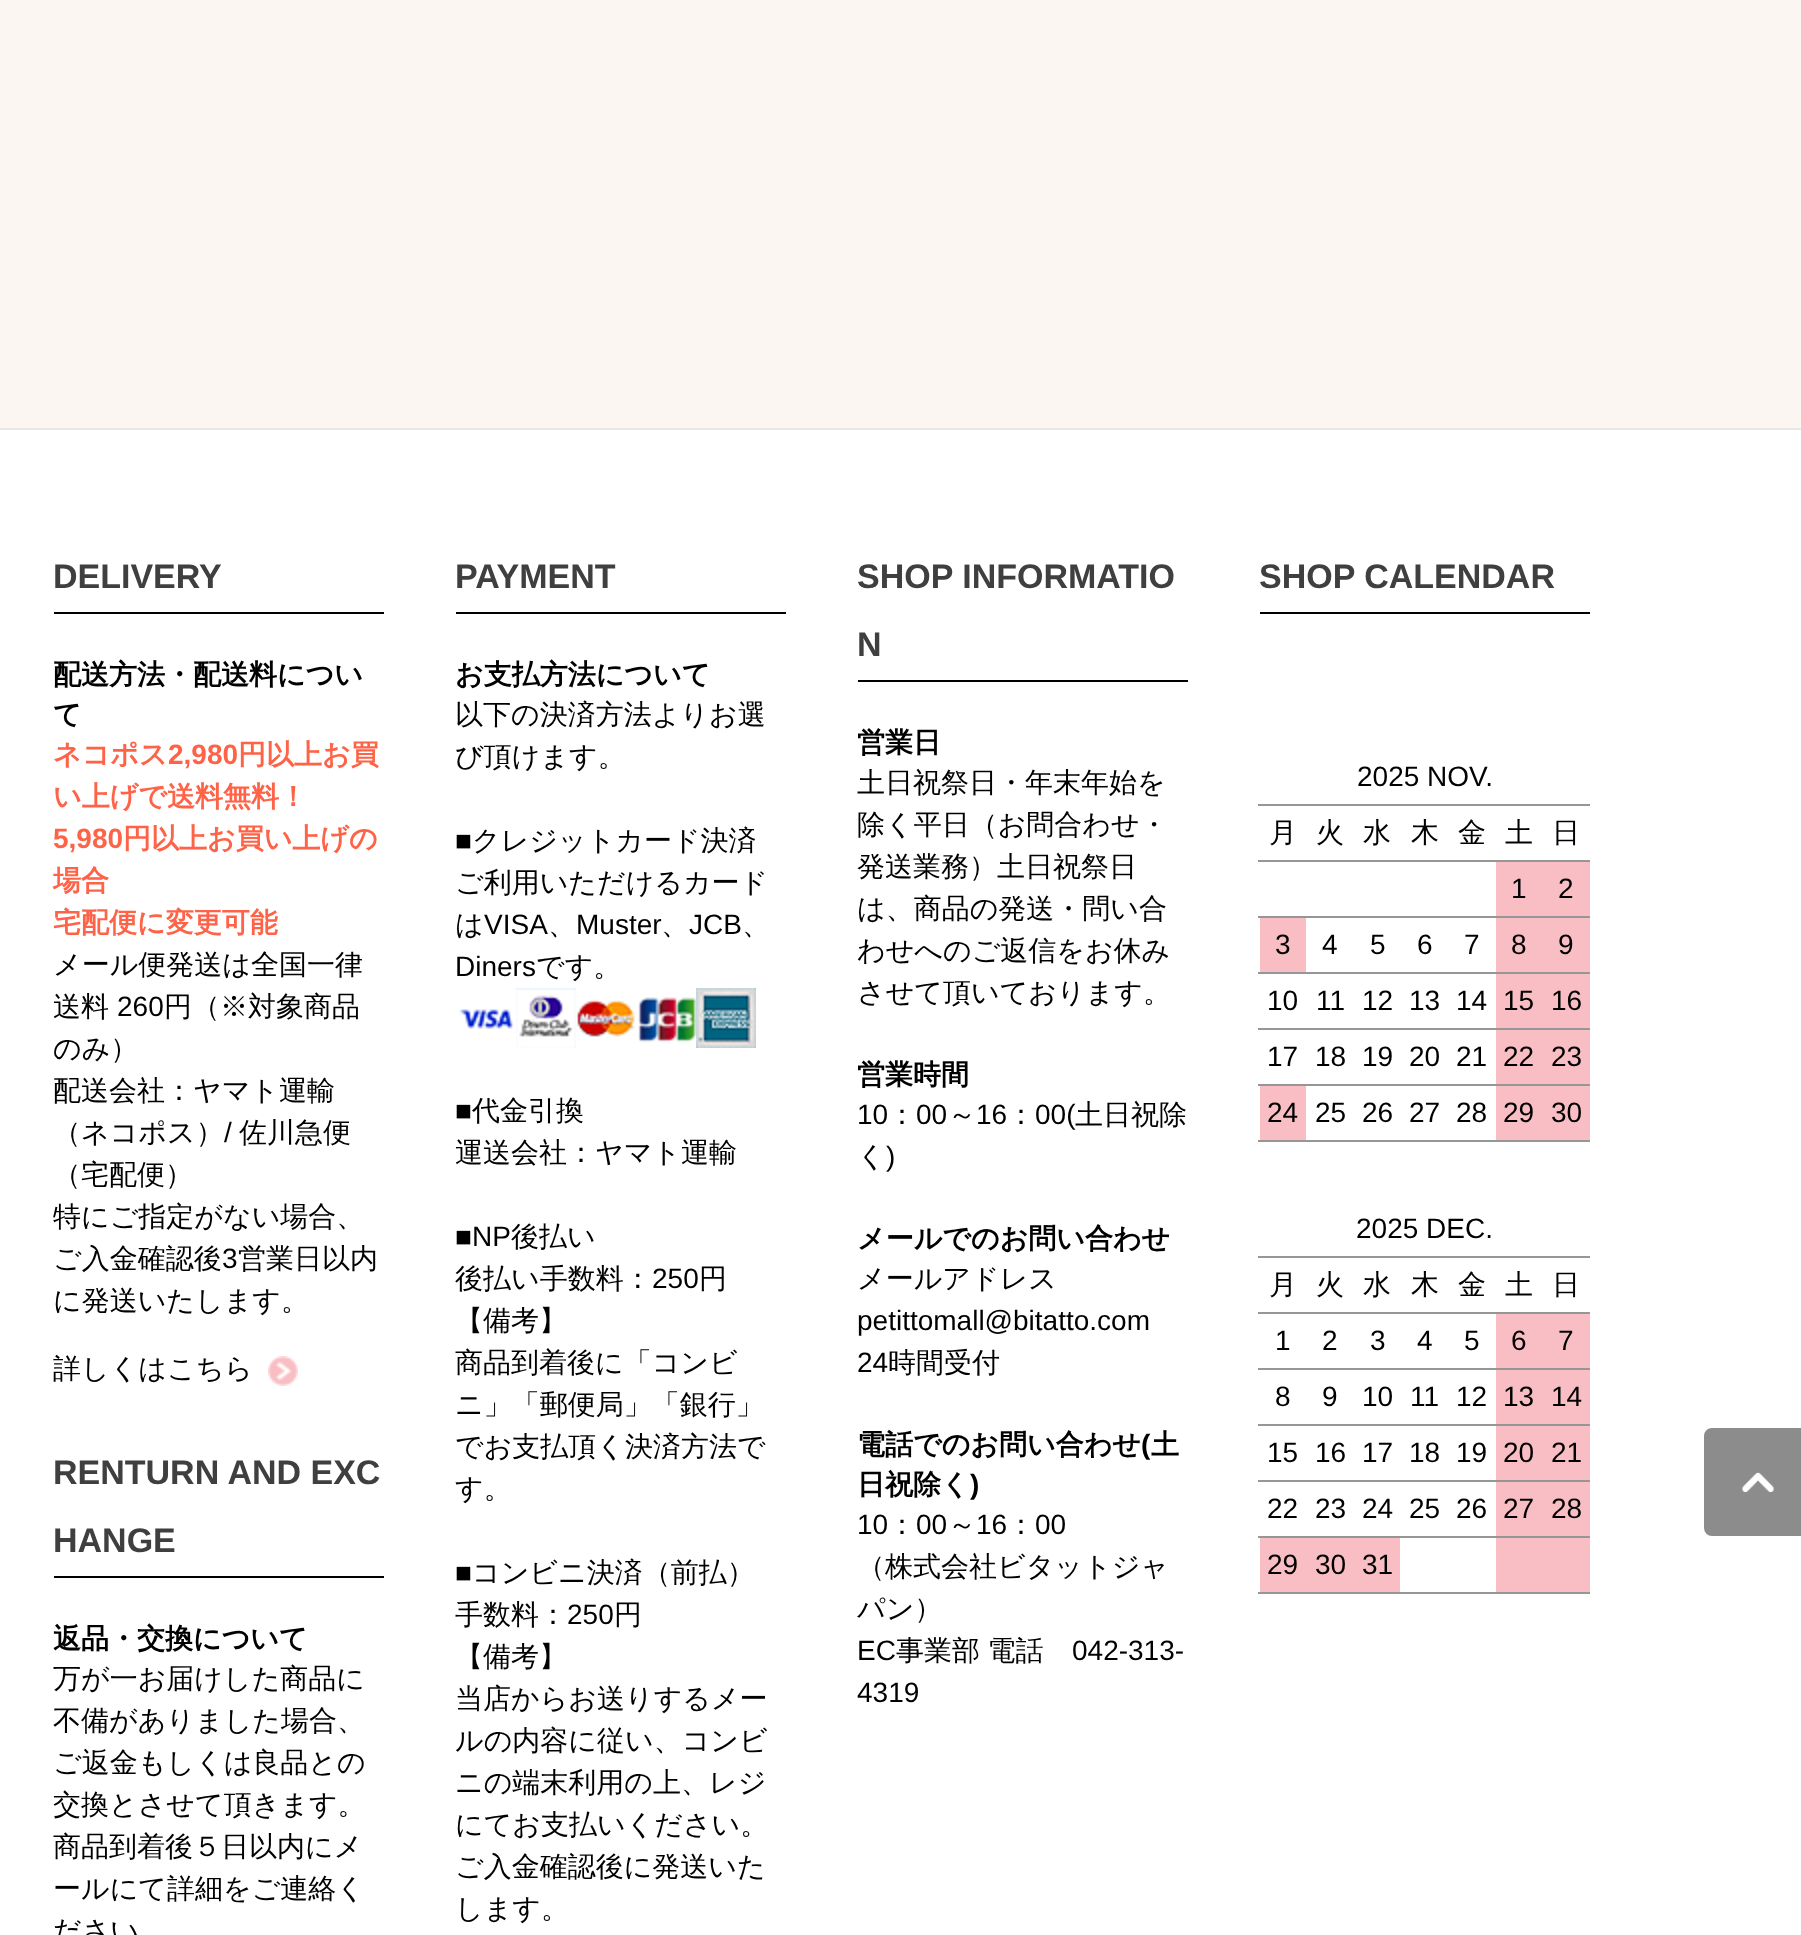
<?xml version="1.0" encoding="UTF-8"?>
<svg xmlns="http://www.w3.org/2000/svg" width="1801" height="1935">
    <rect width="100%" height="100%" fill="#FCF6F3"/>
    <rect x="0" y="430" width="1801" height="1505" fill="#FFFFFF"/>
    <rect x="0" y="428" width="1801" height="2" fill="#E8E8E8"/>
    <rect x="54" y="612" width="330" height="2" fill="#000000"/>
    <text x="53" y="588" font-family="Liberation Sans" font-size="34" font-weight="700" fill="#3F3F3F">DELIVERY</text>
    <text font-family="WenQuanYi Zen Hei" font-size="28" font-weight="700" fill="#000000">
        <tspan x="53" y="684">配送方法・配送料につい</tspan>
        <tspan x="53" y="724">て</tspan>
    </text>
    <text x="53" y="764" font-family="WenQuanYi Zen Hei" font-size="28" font-weight="700" fill="#FF6347">ネコポス</text>
    <text x="168" y="764" font-family="Liberation Sans" font-size="28" font-weight="700" fill="#FF6347">2,980</text>
    <text x="238" y="764" font-family="WenQuanYi Zen Hei" font-size="28" font-weight="700" fill="#FF6347">円以上お買</text>
    <text x="53" y="806" font-family="WenQuanYi Zen Hei" font-size="28" font-weight="700" fill="#FF6347">い上げで送料無料！</text>
    <text x="53" y="848" font-family="Liberation Sans" font-size="28" font-weight="700" fill="#FF6347">5,980</text>
    <text x="123" y="848" font-family="WenQuanYi Zen Hei" font-size="28" font-weight="700" fill="#FF6347">円以上お買い上げの</text>
    <text font-family="WenQuanYi Zen Hei" font-size="28" font-weight="700" fill="#FF6347">
        <tspan x="53" y="890">場合</tspan>
        <tspan x="53" y="932">宅配便に変更可能</tspan>
    </text>
    <text font-family="WenQuanYi Zen Hei" font-size="28" font-weight="500" fill="#000000">
        <tspan x="53" y="974">メール便発送は全国一律</tspan>
        <tspan x="53" y="1016">送料</tspan>
    </text>
    <text x="117" y="1016" font-family="Liberation Sans" font-size="28" fill="#000000">260</text>
    <text x="164" y="1016" font-family="WenQuanYi Zen Hei" font-size="28" font-weight="500" fill="#000000">円（※対象商品</text>
    <text font-family="WenQuanYi Zen Hei" font-size="28" font-weight="500" fill="#000000">
        <tspan x="53" y="1058">のみ）</tspan>
        <tspan x="53" y="1100">配送会社：ヤマト運輸</tspan>
        <tspan x="53" y="1142">（ネコポス）</tspan>
    </text>
    <text x="224" y="1142" font-family="Liberation Sans" font-size="28" fill="#000000">/</text>
    <text x="239" y="1142" font-family="WenQuanYi Zen Hei" font-size="28" font-weight="500" fill="#000000">佐川急便</text>
    <text font-family="WenQuanYi Zen Hei" font-size="28" font-weight="500" fill="#000000">
        <tspan x="53" y="1184">（宅配便）</tspan>
        <tspan x="53" y="1226">特にご指定がない場合、</tspan>
        <tspan x="53" y="1268">ご入金確認後</tspan>
    </text>
    <text x="222" y="1268" font-family="Liberation Sans" font-size="28" fill="#000000">3</text>
    <text x="238" y="1268" font-family="WenQuanYi Zen Hei" font-size="28" font-weight="500" fill="#000000">営業日以内</text>
    <text x="53" y="1310" font-family="WenQuanYi Zen Hei" font-size="28" font-weight="500" fill="#000000">に発送いたします。</text>
    <text x="53" y="1378" font-family="WenQuanYi Zen Hei" font-size="28" font-weight="500" fill="#000000">詳しくはこちら</text>
    <image x="268" y="1356" width="30" height="30" href="img_01.png"/>
    <rect x="54" y="1576" width="330" height="2" fill="#000000"/>
    <text x="53" y="1484" font-family="Liberation Sans" font-size="34" font-weight="700" fill="#3F3F3F">RENTURN AND EXC</text>
    <text x="53" y="1552" font-family="Liberation Sans" font-size="34" font-weight="700" fill="#3F3F3F">HANGE</text>
    <text x="53" y="1648" font-family="WenQuanYi Zen Hei" font-size="28" font-weight="700" fill="#000000">返品・交換について</text>
    <text font-family="WenQuanYi Zen Hei" font-size="28" font-weight="500" fill="#000000">
        <tspan x="53" y="1688">万が一お届けした商品に</tspan>
        <tspan x="53" y="1730">不備がありました場合、</tspan>
        <tspan x="53" y="1772">ご返金もしくは良品との</tspan>
        <tspan x="53" y="1814">交換とさせて頂きます。</tspan>
        <tspan x="53" y="1856">商品到着後５日以内にメ</tspan>
        <tspan x="53" y="1898">ールにて詳細をご連絡く</tspan>
        <tspan x="53" y="1940">ださい</tspan>
    </text>
    <rect x="456" y="612" width="330" height="2" fill="#000000"/>
    <text x="455" y="588" font-family="Liberation Sans" font-size="34" font-weight="700" fill="#3F3F3F">PAYMENT</text>
    <text x="455" y="684" font-family="WenQuanYi Zen Hei" font-size="28" font-weight="700" fill="#000000">お支払方法について</text>
    <text font-family="WenQuanYi Zen Hei" font-size="28" font-weight="500" fill="#000000">
        <tspan x="455" y="724">以下の決済方法よりお選</tspan>
        <tspan x="455" y="766">び頂けます。</tspan>
    </text>
    <text x="455" y="850" font-family="Liberation Sans" font-size="28" fill="#000000">■</text>
    <text x="472" y="850" font-family="WenQuanYi Zen Hei" font-size="28" font-weight="500" fill="#000000">クレジットカード決済</text>
    <text font-family="WenQuanYi Zen Hei" font-size="28" font-weight="500" fill="#000000">
        <tspan x="455" y="892">ご利用いただけるカード</tspan>
        <tspan x="455" y="934">は</tspan>
    </text>
    <text x="484" y="934" font-family="Liberation Sans" font-size="28" fill="#000000">VISA</text>
    <text x="548" y="934" font-family="WenQuanYi Zen Hei" font-size="28" font-weight="500" fill="#000000">、</text>
    <text x="576" y="934" font-family="Liberation Sans" font-size="28" fill="#000000">Muster</text>
    <text x="661" y="934" font-family="WenQuanYi Zen Hei" font-size="28" font-weight="500" fill="#000000">、</text>
    <text x="689" y="934" font-family="Liberation Sans" font-size="28" fill="#000000">JCB</text>
    <text x="742" y="934" font-family="WenQuanYi Zen Hei" font-size="28" font-weight="500" fill="#000000">、</text>
    <text x="455" y="976" font-family="Liberation Sans" font-size="28" fill="#000000">Diners</text>
    <text x="536" y="976" font-family="WenQuanYi Zen Hei" font-size="28" font-weight="500" fill="#000000">です。</text>
    <image x="459" y="1009" width="54" height="20" href="img_02.png"/>
    <image x="516" y="988" width="60" height="60" href="img_03.png"/>
    <image x="577" y="999" width="59" height="38" href="img_04.png"/>
    <image x="638" y="997" width="58" height="46" href="img_05.png"/>
    <image x="696" y="988" width="60" height="60" href="img_06.png"/>
    <text x="455" y="1120" font-family="Liberation Sans" font-size="28" fill="#000000">■</text>
    <text x="472" y="1120" font-family="WenQuanYi Zen Hei" font-size="28" font-weight="500" fill="#000000">代金引換</text>
    <text x="455" y="1162" font-family="WenQuanYi Zen Hei" font-size="28" font-weight="500" fill="#000000">運送会社：ヤマト運輸</text>
    <text x="455" y="1246" font-family="Liberation Sans" font-size="28" fill="#000000">■NP</text>
    <text x="511" y="1246" font-family="WenQuanYi Zen Hei" font-size="28" font-weight="500" fill="#000000">後払い</text>
    <text x="455" y="1288" font-family="WenQuanYi Zen Hei" font-size="28" font-weight="500" fill="#000000">後払い手数料：</text>
    <text x="652" y="1288" font-family="Liberation Sans" font-size="28" fill="#000000">250</text>
    <text x="699" y="1288" font-family="WenQuanYi Zen Hei" font-size="28" font-weight="500" fill="#000000">円</text>
    <text font-family="WenQuanYi Zen Hei" font-size="28" font-weight="500" fill="#000000">
        <tspan x="455" y="1330">【備考】</tspan>
        <tspan x="455" y="1372">商品到着後に「コンビ</tspan>
        <tspan x="455" y="1414">ニ」「郵便局」「銀行」</tspan>
        <tspan x="455" y="1456">でお支払頂く決済方法で</tspan>
        <tspan x="455" y="1498">す。</tspan>
    </text>
    <text x="455" y="1582" font-family="Liberation Sans" font-size="28" fill="#000000">■</text>
    <text x="472" y="1582" font-family="WenQuanYi Zen Hei" font-size="28" font-weight="500" fill="#000000">コンビニ決済（前払）</text>
    <text x="455" y="1624" font-family="WenQuanYi Zen Hei" font-size="28" font-weight="500" fill="#000000">手数料：</text>
    <text x="567" y="1624" font-family="Liberation Sans" font-size="28" fill="#000000">250</text>
    <text x="614" y="1624" font-family="WenQuanYi Zen Hei" font-size="28" font-weight="500" fill="#000000">円</text>
    <text font-family="WenQuanYi Zen Hei" font-size="28" font-weight="500" fill="#000000">
        <tspan x="455" y="1666">【備考】</tspan>
        <tspan x="455" y="1708">当店からお送りするメー</tspan>
        <tspan x="455" y="1750">ルの内容に従い、コンビ</tspan>
        <tspan x="455" y="1792">ニの端末利用の上、レジ</tspan>
        <tspan x="455" y="1834">にてお支払いください。</tspan>
        <tspan x="455" y="1876">ご入金確認後に発送いた</tspan>
        <tspan x="455" y="1918">します。</tspan>
    </text>
    <rect x="858" y="680" width="330" height="2" fill="#000000"/>
    <text x="857" y="588" font-family="Liberation Sans" font-size="34" font-weight="700" fill="#3F3F3F">SHOP INFORMATIO</text>
    <text x="857" y="656" font-family="Liberation Sans" font-size="34" font-weight="700" fill="#3F3F3F">N</text>
    <text x="857" y="752" font-family="WenQuanYi Zen Hei" font-size="28" font-weight="700" fill="#000000">営業日</text>
    <text font-family="WenQuanYi Zen Hei" font-size="28" font-weight="500" fill="#000000">
        <tspan x="857" y="792">土日祝祭日・年末年始を</tspan>
        <tspan x="857" y="834">除く平日（お問合わせ・</tspan>
        <tspan x="857" y="876">発送業務）土日祝祭日</tspan>
        <tspan x="857" y="918">は、商品の発送・問い合</tspan>
        <tspan x="857" y="960">わせへのご返信をお休み</tspan>
        <tspan x="857" y="1002">させて頂いております。</tspan>
    </text>
    <text x="857" y="1084" font-family="WenQuanYi Zen Hei" font-size="28" font-weight="700" fill="#000000">営業時間</text>
    <text x="857" y="1124" font-family="Liberation Sans" font-size="28" fill="#000000">10</text>
    <text x="888" y="1124" font-family="WenQuanYi Zen Hei" font-size="28" font-weight="500" fill="#000000">：</text>
    <text x="916" y="1124" font-family="Liberation Sans" font-size="28" fill="#000000">00</text>
    <text x="948" y="1124" font-family="WenQuanYi Zen Hei" font-size="28" font-weight="500" fill="#000000">～</text>
    <text x="976" y="1124" font-family="Liberation Sans" font-size="28" fill="#000000">16</text>
    <text x="1007" y="1124" font-family="WenQuanYi Zen Hei" font-size="28" font-weight="500" fill="#000000">：</text>
    <text x="1035" y="1124" font-family="Liberation Sans" font-size="28" fill="#000000">00(</text>
    <text x="1075" y="1124" font-family="WenQuanYi Zen Hei" font-size="28" font-weight="500" fill="#000000">土日祝除</text>
    <text x="857" y="1166" font-family="WenQuanYi Zen Hei" font-size="28" font-weight="500" fill="#000000">く</text>
    <text x="886" y="1166" font-family="Liberation Sans" font-size="28" fill="#000000">)</text>
    <text x="857" y="1248" font-family="WenQuanYi Zen Hei" font-size="28" font-weight="700" fill="#000000">メールでのお問い合わせ</text>
    <text x="857" y="1288" font-family="WenQuanYi Zen Hei" font-size="28" font-weight="500" fill="#000000">メールアドレス</text>
    <text font-family="Liberation Sans" font-size="28" fill="#000000">
        <tspan x="857" y="1330">petittomall@bitatto.com</tspan>
        <tspan x="857" y="1372">24</tspan>
    </text>
    <text x="888" y="1372" font-family="WenQuanYi Zen Hei" font-size="28" font-weight="500" fill="#000000">時間受付</text>
    <text x="857" y="1454" font-family="WenQuanYi Zen Hei" font-size="28" font-weight="700" fill="#000000">電話でのお問い合わせ</text>
    <text x="1141" y="1454" font-family="Liberation Sans" font-size="28" font-weight="700" fill="#000000">(</text>
    <text x="1151" y="1454" font-family="WenQuanYi Zen Hei" font-size="28" font-weight="700" fill="#000000">土</text>
    <text x="857" y="1494" font-family="WenQuanYi Zen Hei" font-size="28" font-weight="700" fill="#000000">日祝除く</text>
    <text x="970" y="1494" font-family="Liberation Sans" font-size="28" font-weight="700" fill="#000000">)</text>
    <text x="857" y="1534" font-family="Liberation Sans" font-size="28" fill="#000000">10</text>
    <text x="888" y="1534" font-family="WenQuanYi Zen Hei" font-size="28" font-weight="500" fill="#000000">：</text>
    <text x="916" y="1534" font-family="Liberation Sans" font-size="28" fill="#000000">00</text>
    <text x="948" y="1534" font-family="WenQuanYi Zen Hei" font-size="28" font-weight="500" fill="#000000">～</text>
    <text x="976" y="1534" font-family="Liberation Sans" font-size="28" fill="#000000">16</text>
    <text x="1007" y="1534" font-family="WenQuanYi Zen Hei" font-size="28" font-weight="500" fill="#000000">：</text>
    <text x="1035" y="1534" font-family="Liberation Sans" font-size="28" fill="#000000">00</text>
    <text font-family="WenQuanYi Zen Hei" font-size="28" font-weight="500" fill="#000000">
        <tspan x="857" y="1576">（株式会社ビタットジャ</tspan>
        <tspan x="857" y="1618">パン）</tspan>
    </text>
    <text x="857" y="1660" font-family="Liberation Sans" font-size="28" fill="#000000">EC</text>
    <text x="896" y="1660" word-spacing="-1" font-family="WenQuanYi Zen Hei" font-size="28" font-weight="500" fill="#000000">事業部 電話</text>
    <text x="1072" y="1660" font-family="Liberation Sans" font-size="28" fill="#000000">042-313-</text>
    <text x="857" y="1702" font-family="Liberation Sans" font-size="28" fill="#000000">4319</text>
    <rect x="1260" y="612" width="330" height="2" fill="#000000"/>
    <text x="1259" y="588" font-family="Liberation Sans" font-size="34" font-weight="700" fill="#3F3F3F">SHOP CALENDAR</text>
    <rect x="1258" y="804" width="332" height="2" fill="#969696"/>
    <text x="1357" y="786" font-family="Liberation Sans" font-size="28" fill="#000000">2025 NOV.</text>
    <rect x="1258" y="860" width="332" height="2" fill="#969696"/>
    <text x="1269" y="842" font-family="WenQuanYi Zen Hei" font-size="28" font-weight="500" fill="#000000">月</text>
    <text x="1316" y="842" font-family="WenQuanYi Zen Hei" font-size="28" font-weight="500" fill="#000000">火</text>
    <text x="1363" y="842" font-family="WenQuanYi Zen Hei" font-size="28" font-weight="500" fill="#000000">水</text>
    <text x="1411" y="842" font-family="WenQuanYi Zen Hei" font-size="28" font-weight="500" fill="#000000">木</text>
    <text x="1458" y="842" font-family="WenQuanYi Zen Hei" font-size="28" font-weight="500" fill="#000000">金</text>
    <text x="1505" y="842" font-family="WenQuanYi Zen Hei" font-size="28" font-weight="500" fill="#000000">土</text>
    <text x="1552" y="842" font-family="WenQuanYi Zen Hei" font-size="28" font-weight="500" fill="#000000">日</text>
    <rect x="1258" y="916" width="332" height="2" fill="#969696"/>
    <rect x="1496" y="862" width="94" height="54" fill="#F8BEC4"/>
    <text x="1511" y="898" font-family="Liberation Sans" font-size="28" fill="#000000">1</text>
    <text x="1558" y="898" font-family="Liberation Sans" font-size="28" fill="#000000">2</text>
    <rect x="1258" y="972" width="332" height="2" fill="#969696"/>
    <rect x="1260" y="918" width="46" height="54" fill="#F8BEC4"/>
    <text x="1275" y="954" font-family="Liberation Sans" font-size="28" fill="#000000">3</text>
    <text x="1322" y="954" font-family="Liberation Sans" font-size="28" fill="#000000">4</text>
    <text x="1370" y="954" font-family="Liberation Sans" font-size="28" fill="#000000">5</text>
    <text x="1417" y="954" font-family="Liberation Sans" font-size="28" fill="#000000">6</text>
    <text x="1464" y="954" font-family="Liberation Sans" font-size="28" fill="#000000">7</text>
    <rect x="1496" y="918" width="94" height="54" fill="#F8BEC4"/>
    <text x="1511" y="954" font-family="Liberation Sans" font-size="28" fill="#000000">8</text>
    <text x="1558" y="954" font-family="Liberation Sans" font-size="28" fill="#000000">9</text>
    <rect x="1258" y="1028" width="332" height="2" fill="#969696"/>
    <text x="1267" y="1010" font-family="Liberation Sans" font-size="28" fill="#000000">10</text>
    <text x="1316" y="1010" font-family="Liberation Sans" font-size="28" fill="#000000">11</text>
    <text x="1362" y="1010" font-family="Liberation Sans" font-size="28" fill="#000000">12</text>
    <text x="1409" y="1010" font-family="Liberation Sans" font-size="28" fill="#000000">13</text>
    <text x="1456" y="1010" font-family="Liberation Sans" font-size="28" fill="#000000">14</text>
    <rect x="1496" y="974" width="94" height="54" fill="#F8BEC4"/>
    <text x="1503" y="1010" font-family="Liberation Sans" font-size="28" fill="#000000">15</text>
    <text x="1551" y="1010" font-family="Liberation Sans" font-size="28" fill="#000000">16</text>
    <rect x="1258" y="1084" width="332" height="2" fill="#969696"/>
    <text x="1267" y="1066" font-family="Liberation Sans" font-size="28" fill="#000000">17</text>
    <text x="1315" y="1066" font-family="Liberation Sans" font-size="28" fill="#000000">18</text>
    <text x="1362" y="1066" font-family="Liberation Sans" font-size="28" fill="#000000">19</text>
    <text x="1409" y="1066" font-family="Liberation Sans" font-size="28" fill="#000000">20</text>
    <text x="1456" y="1066" font-family="Liberation Sans" font-size="28" fill="#000000">21</text>
    <rect x="1496" y="1030" width="94" height="54" fill="#F8BEC4"/>
    <text x="1503" y="1066" font-family="Liberation Sans" font-size="28" fill="#000000">22</text>
    <text x="1551" y="1066" font-family="Liberation Sans" font-size="28" fill="#000000">23</text>
    <rect x="1258" y="1140" width="332" height="2" fill="#969696"/>
    <rect x="1260" y="1086" width="46" height="54" fill="#F8BEC4"/>
    <text x="1267" y="1122" font-family="Liberation Sans" font-size="28" fill="#000000">24</text>
    <text x="1315" y="1122" font-family="Liberation Sans" font-size="28" fill="#000000">25</text>
    <text x="1362" y="1122" font-family="Liberation Sans" font-size="28" fill="#000000">26</text>
    <text x="1409" y="1122" font-family="Liberation Sans" font-size="28" fill="#000000">27</text>
    <text x="1456" y="1122" font-family="Liberation Sans" font-size="28" fill="#000000">28</text>
    <rect x="1496" y="1086" width="94" height="54" fill="#F8BEC4"/>
    <text x="1503" y="1122" font-family="Liberation Sans" font-size="28" fill="#000000">29</text>
    <text x="1551" y="1122" font-family="Liberation Sans" font-size="28" fill="#000000">30</text>
    <rect x="1258" y="1256" width="332" height="2" fill="#969696"/>
    <text x="1356" y="1238" font-family="Liberation Sans" font-size="28" fill="#000000">2025 DEC.</text>
    <rect x="1258" y="1312" width="332" height="2" fill="#969696"/>
    <text x="1269" y="1294" font-family="WenQuanYi Zen Hei" font-size="28" font-weight="500" fill="#000000">月</text>
    <text x="1316" y="1294" font-family="WenQuanYi Zen Hei" font-size="28" font-weight="500" fill="#000000">火</text>
    <text x="1363" y="1294" font-family="WenQuanYi Zen Hei" font-size="28" font-weight="500" fill="#000000">水</text>
    <text x="1411" y="1294" font-family="WenQuanYi Zen Hei" font-size="28" font-weight="500" fill="#000000">木</text>
    <text x="1458" y="1294" font-family="WenQuanYi Zen Hei" font-size="28" font-weight="500" fill="#000000">金</text>
    <text x="1505" y="1294" font-family="WenQuanYi Zen Hei" font-size="28" font-weight="500" fill="#000000">土</text>
    <text x="1552" y="1294" font-family="WenQuanYi Zen Hei" font-size="28" font-weight="500" fill="#000000">日</text>
    <rect x="1258" y="1368" width="332" height="2" fill="#969696"/>
    <text x="1275" y="1350" font-family="Liberation Sans" font-size="28" fill="#000000">1</text>
    <text x="1322" y="1350" font-family="Liberation Sans" font-size="28" fill="#000000">2</text>
    <text x="1370" y="1350" font-family="Liberation Sans" font-size="28" fill="#000000">3</text>
    <text x="1417" y="1350" font-family="Liberation Sans" font-size="28" fill="#000000">4</text>
    <text x="1464" y="1350" font-family="Liberation Sans" font-size="28" fill="#000000">5</text>
    <rect x="1496" y="1314" width="94" height="54" fill="#F8BEC4"/>
    <text x="1511" y="1350" font-family="Liberation Sans" font-size="28" fill="#000000">6</text>
    <text x="1558" y="1350" font-family="Liberation Sans" font-size="28" fill="#000000">7</text>
    <rect x="1258" y="1424" width="332" height="2" fill="#969696"/>
    <text x="1275" y="1406" font-family="Liberation Sans" font-size="28" fill="#000000">8</text>
    <text x="1322" y="1406" font-family="Liberation Sans" font-size="28" fill="#000000">9</text>
    <text x="1362" y="1406" font-family="Liberation Sans" font-size="28" fill="#000000">10</text>
    <text x="1410" y="1406" font-family="Liberation Sans" font-size="28" fill="#000000">11</text>
    <text x="1456" y="1406" font-family="Liberation Sans" font-size="28" fill="#000000">12</text>
    <rect x="1496" y="1370" width="94" height="54" fill="#F8BEC4"/>
    <text x="1503" y="1406" font-family="Liberation Sans" font-size="28" fill="#000000">13</text>
    <text x="1551" y="1406" font-family="Liberation Sans" font-size="28" fill="#000000">14</text>
    <rect x="1258" y="1480" width="332" height="2" fill="#969696"/>
    <text x="1267" y="1462" font-family="Liberation Sans" font-size="28" fill="#000000">15</text>
    <text x="1315" y="1462" font-family="Liberation Sans" font-size="28" fill="#000000">16</text>
    <text x="1362" y="1462" font-family="Liberation Sans" font-size="28" fill="#000000">17</text>
    <text x="1409" y="1462" font-family="Liberation Sans" font-size="28" fill="#000000">18</text>
    <text x="1456" y="1462" font-family="Liberation Sans" font-size="28" fill="#000000">19</text>
    <rect x="1496" y="1426" width="94" height="54" fill="#F8BEC4"/>
    <text x="1503" y="1462" font-family="Liberation Sans" font-size="28" fill="#000000">20</text>
    <text x="1551" y="1462" font-family="Liberation Sans" font-size="28" fill="#000000">21</text>
    <rect x="1258" y="1536" width="332" height="2" fill="#969696"/>
    <text x="1267" y="1518" font-family="Liberation Sans" font-size="28" fill="#000000">22</text>
    <text x="1315" y="1518" font-family="Liberation Sans" font-size="28" fill="#000000">23</text>
    <text x="1362" y="1518" font-family="Liberation Sans" font-size="28" fill="#000000">24</text>
    <text x="1409" y="1518" font-family="Liberation Sans" font-size="28" fill="#000000">25</text>
    <text x="1456" y="1518" font-family="Liberation Sans" font-size="28" fill="#000000">26</text>
    <rect x="1496" y="1482" width="94" height="54" fill="#F8BEC4"/>
    <text x="1503" y="1518" font-family="Liberation Sans" font-size="28" fill="#000000">27</text>
    <text x="1551" y="1518" font-family="Liberation Sans" font-size="28" fill="#000000">28</text>
    <rect x="1258" y="1592" width="332" height="2" fill="#969696"/>
    <rect x="1260" y="1538" width="140" height="54" fill="#F8BEC4"/>
    <text x="1267" y="1574" font-family="Liberation Sans" font-size="28" fill="#000000">29</text>
    <text x="1315" y="1574" font-family="Liberation Sans" font-size="28" fill="#000000">30</text>
    <text x="1362" y="1574" font-family="Liberation Sans" font-size="28" fill="#000000">31</text>
    <rect x="1496" y="1538" width="94" height="54" fill="#F8BEC4"/>
    <path d="M 1712 1429 H 1801 V 1535 H 1712 C 1708 1535 1705 1532 1705 1528 V 1436 C 1705 1432 1708 1429 1712 1429 Z" fill="#8C8C8C" stroke="#8C8C8C" stroke-width="2"/>
    <image x="1742" y="1472" width="32" height="21" href="img_07.png"/>
</svg>
